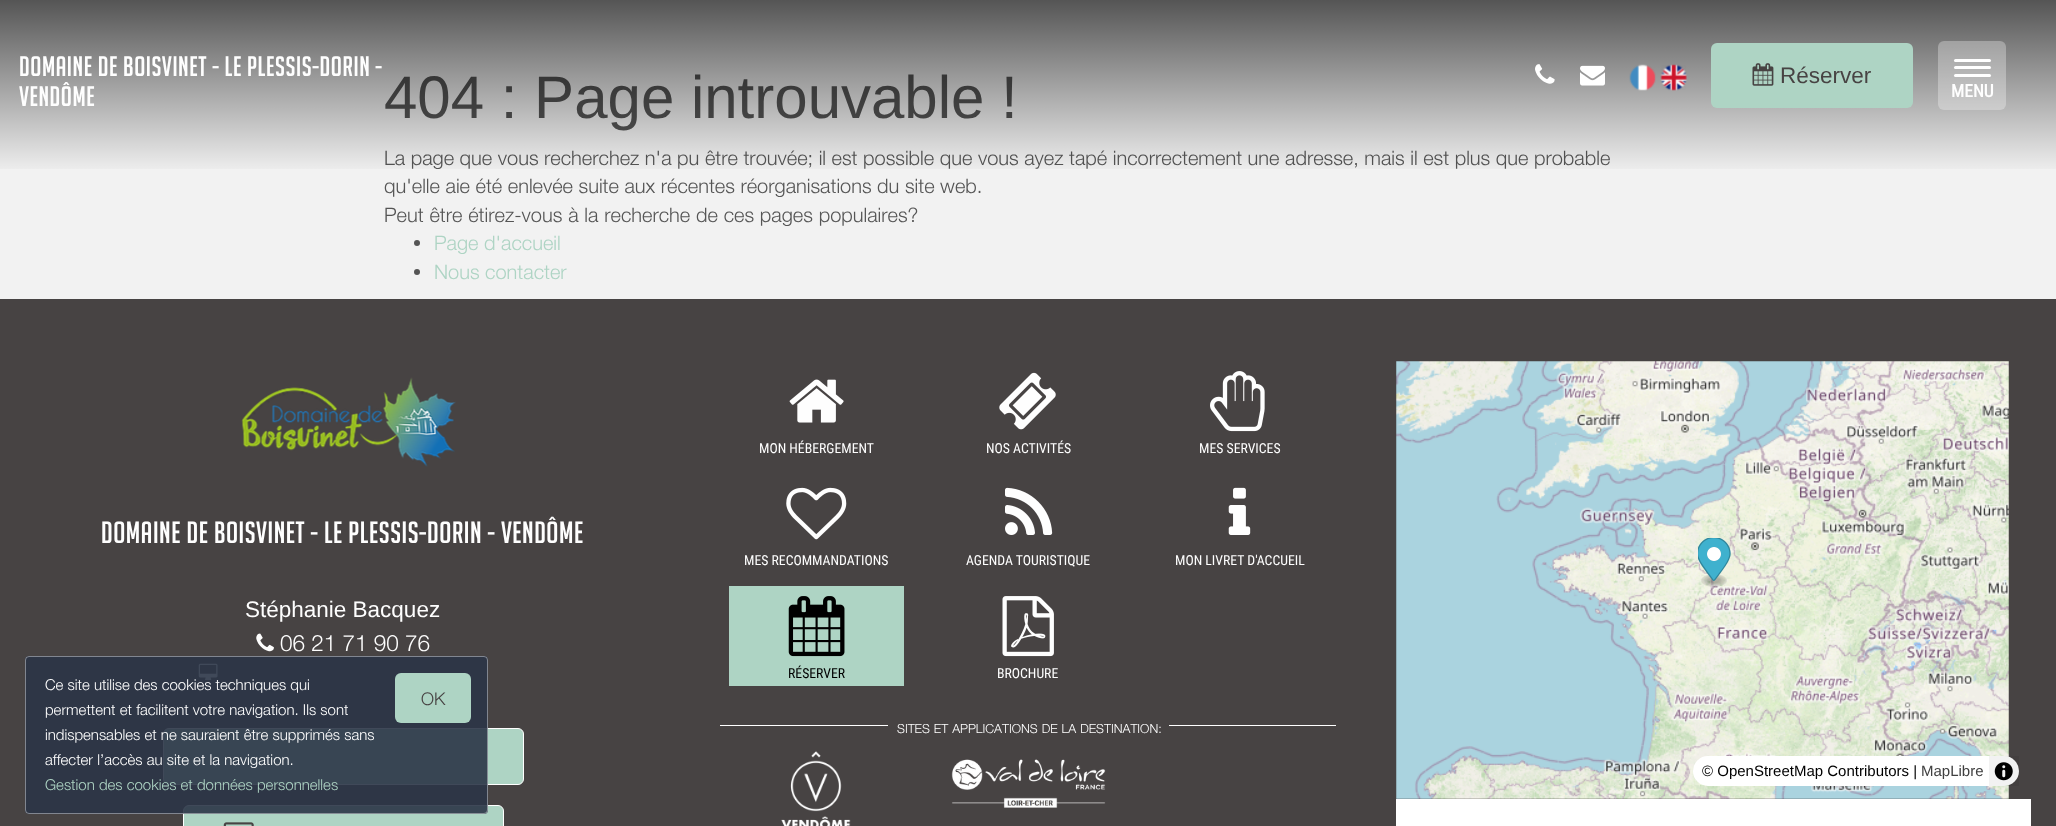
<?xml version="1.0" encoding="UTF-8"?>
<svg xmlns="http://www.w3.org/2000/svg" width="2056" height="826">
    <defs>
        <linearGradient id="g1" gradientUnits="userSpaceOnUse" x1="1028" y1="0" x2="1028" y2="175"><stop offset="0" stop-color="#000000" stop-opacity="0.65"/><stop offset="1" stop-color="#000000" stop-opacity="0"/></linearGradient>
    </defs>
    <rect width="100%" height="100%" fill="#F2F2F2"/>
    <text x="384" y="118" font-family="Liberation Sans" font-size="60" fill="#555555">404 : Page introuvable !</text>
    <text x="384" y="165" font-family="Helvetica Neue" font-size="20" font-weight="300" fill="#555555">La page que vous recherchez n'a pu être trouvée; il est possible que vous ayez tapé incorrectement une adresse, mais il est plus que probable</text>
    <rect x="0" y="0" width="2056" height="169" fill="url(#g1)"/>
    <text font-family="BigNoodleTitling" font-size="27.5" letter-spacing="0.6" fill="#FEFEFE">
        <tspan x="19" y="76">DOMAINE DE BOISVINET - LE PLESSIS-DORIN -</tspan>
        <tspan x="19" y="106">VENDÔME</tspan>
    </text>
    <image x="1535" y="64" width="20" height="20" href="img_01.png"/>
    <image x="1580" y="65" width="25" height="21" href="img_02.png"/>
    <image x="1629" y="64" width="27" height="27" href="img_03.png"/>
    <image x="1660" y="64" width="27" height="27" href="img_04.png"/>
    <rect x="1711" y="43" width="202" height="65" rx="6" fill="#AED4C4"/>
    <image x="1752" y="63" width="22" height="23" href="img_05.png"/>
    <text x="1780" y="83" font-family="Liberation Sans" font-size="22.5" fill="#474343">Réserver</text>
    <rect x="1938" y="41" width="68" height="69" rx="6" fill="#FFFFFF" fill-opacity="0.3"/>
    <rect x="1954" y="59" width="37" height="3" rx="1.5" fill="#FFFFFF"/>
    <rect x="1954" y="66" width="37" height="3" rx="1.5" fill="#FFFFFF"/>
    <rect x="1954" y="74" width="37" height="3" rx="1.5" fill="#FFFFFF"/>
    <text x="1951" y="97" font-family="Roboto Condensed" font-size="17.5" font-weight="700" fill="#FEFEFE">MENU</text>
    <text font-family="Helvetica Neue" font-size="20" font-weight="300" fill="#555555">
        <tspan x="384" y="193">qu'elle aie été enlevée suite aux récentes réorganisations du site web.</tspan>
        <tspan x="384" y="222" word-spacing="0.25">Peut être étirez-vous à la recherche de ces pages populaires?</tspan>
    </text>
    <circle cx="417" cy="243" r="3" fill="#555555"/>
    <text x="434" y="250" font-family="Helvetica Neue" font-size="20" font-weight="300" fill="#AED4C4">Page d'accueil</text>
    <circle cx="417" cy="272" r="3" fill="#555555"/>
    <text x="434" y="279" font-family="Helvetica Neue" font-size="20" font-weight="300" fill="#AED4C4">Nous contacter</text>
    <rect x="0" y="299" width="2056" height="527" fill="#474343"/>
    <image x="241" y="377" width="215" height="90" href="img_06.png"/>
    <text x="101" y="543" font-family="BigNoodleTitling" font-size="30" letter-spacing="0.6" fill="#FEFEFE">DOMAINE DE BOISVINET - LE PLESSIS-DORIN - VENDÔME</text>
    <text x="245" y="617" font-family="Liberation Sans" font-size="22.5" fill="#FEFEFE">Stéphanie Bacquez</text>
    <image x="256" y="633" width="18" height="19" href="img_07.png"/>
    <text x="280" y="651" font-family="Helvetica Neue" font-size="22.5" font-weight="300" fill="#FEFEFE">06 21 71 90 76</text>
    <image x="198" y="663" width="20" height="17" href="img_08.png"/>
    <rect x="163.5" y="728.5" width="360" height="56" rx="5.5" fill="#AED4C4" stroke="#FFFFFF"/>
    <rect x="183.5" y="805.5" width="320" height="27" rx="5.5" fill="#AED4C4" stroke="#FFFFFF"/>
    <image x="223" y="822" width="31" height="4" href="img_09.png"/>
    <image x="789" y="379" width="55" height="44" href="img_10.png"/>
    <text x="759" y="453" font-family="Roboto Condensed" font-size="13.75" fill="#FEFEFE">MON HÉBERGEMENT</text>
    <image x="999" y="372" width="57" height="58" href="img_11.png"/>
    <text x="986" y="453" font-family="Roboto Condensed" font-size="13.75" fill="#FEFEFE">NOS ACTIVITÉS</text>
    <image x="1210" y="371" width="55" height="61" href="img_12.png"/>
    <text x="1199" y="453" font-family="Roboto Condensed" font-size="13.75" fill="#FEFEFE">MES SERVICES</text>
    <image x="786" y="487" width="61" height="53" href="img_13.png"/>
    <text x="744" y="565" font-family="Roboto Condensed" font-size="13.75" fill="#FEFEFE">MES RECOMMANDATIONS</text>
    <image x="1005" y="487" width="48" height="48" href="img_14.png"/>
    <text x="966" y="565" font-family="Roboto Condensed" font-size="13.75" fill="#FEFEFE">AGENDA TOURISTIQUE</text>
    <image x="1228" y="487" width="23" height="48" href="img_15.png"/>
    <text x="1175" y="565" font-family="Roboto Condensed" font-size="13.75" fill="#FEFEFE">MON LIVRET D'ACCUEIL</text>
    <rect x="729" y="586" width="175" height="100" fill="#AED4C4"/>
    <image x="788" y="596" width="57" height="61" href="img_16.png"/>
    <text x="788" y="678" font-family="Roboto Condensed" font-size="13.75" fill="#000000">RÉSERVER</text>
    <image x="1002" y="596" width="52" height="61" href="img_17.png"/>
    <text x="997" y="678" font-family="Roboto Condensed" font-size="13.75" fill="#FEFEFE">BROCHURE</text>
    <rect x="720" y="725" width="168" height="1" fill="#FFFFFF"/>
    <text x="897" y="733" word-spacing="0.5" font-family="Helvetica Neue" font-size="12.5" font-weight="300" fill="#FEFEFE">SITES ET APPLICATIONS DE LA DESTINATION:</text>
    <rect x="1169" y="725" width="167" height="1" fill="#FFFFFF"/>
    <image x="781" y="751" width="70" height="75" href="img_18.png"/>
    <image x="951" y="759" width="155" height="49" href="img_19.png"/>
    <image x="1396" y="361" width="613" height="438" href="img_20.png"/>
    <image x="1698" y="538" width="33" height="49" href="img_21.png"/>
    <rect x="1693" y="756" width="326" height="30" rx="15" fill="#FFFFFF"/>
    <text x="1702" y="776" font-family="Liberation Sans" font-size="15" fill="#000000">© OpenStreetMap Contributors |</text>
    <text x="1921" y="776" font-family="Liberation Sans" font-size="15" fill="#404040">MapLibre</text>
    <rect x="1989" y="756" width="30" height="30" fill="#000000" fill-opacity="0.05"/>
    <image x="1994" y="762" width="19" height="19" href="img_22.png"/>
    <rect x="1396" y="799" width="635" height="27" fill="#FFFFFF"/>
    <rect x="25" y="656" width="463" height="158" rx="4" fill="#2B3547" fill-opacity="0.9"/>
    <rect x="25.5" y="656.5" width="462" height="157" rx="3.5" fill="none" stroke="#FFFFFF" stroke-opacity="0.4"/>
    <text x="45" y="690" font-family="Helvetica Neue" font-size="15" font-weight="300" fill="#FEFEFE">Ce site utilise des cookies techniques qui</text>
    <rect x="395" y="673" width="76" height="50" rx="6" fill="#AED4C4"/>
    <text x="421" y="705" font-family="Helvetica Neue" font-size="17.5" font-weight="300" fill="#474343">OK</text>
    <text font-family="Helvetica Neue" font-size="15" font-weight="300" fill="#FEFEFE">
        <tspan x="45" y="715">permettent et facilitent votre navigation. Ils sont</tspan>
        <tspan x="45" y="740">indispensables et ne sauraient être supprimés sans</tspan>
        <tspan x="45" y="765">affecter l’accès au site et la navigation.</tspan>
    </text>
    <text x="45" y="790" font-family="Helvetica Neue" font-size="15" font-weight="300" fill="#AED4C4">Gestion des cookies et données personnelles</text>
</svg>
